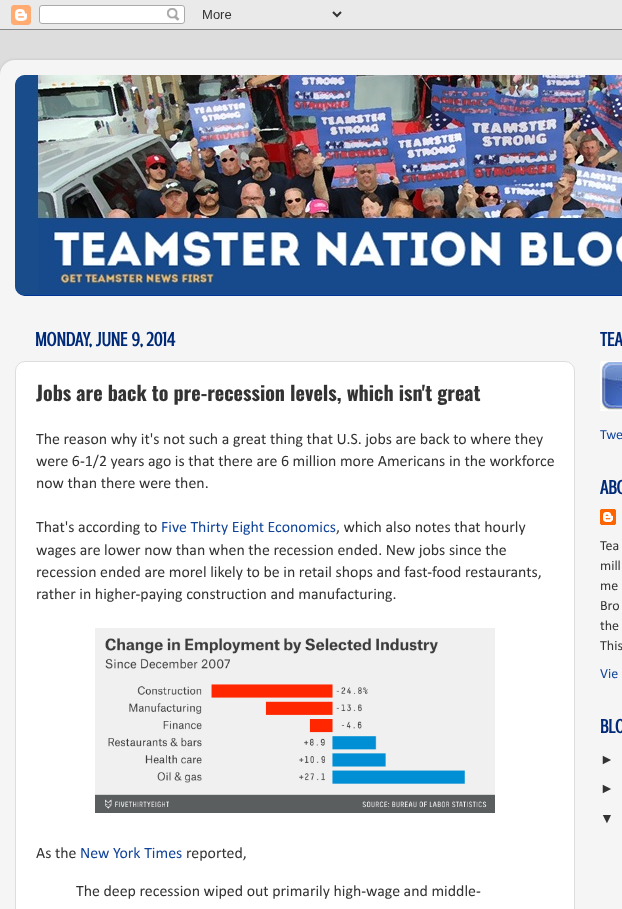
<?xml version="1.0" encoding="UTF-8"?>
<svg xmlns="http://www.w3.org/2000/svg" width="622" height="909">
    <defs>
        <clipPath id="clip1"><path d="M 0 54 H 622 V 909 H 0 Z M 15 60 H 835 C 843.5 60 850 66.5 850 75 V 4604 C 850 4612.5 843.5 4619 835 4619 H 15 C 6.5 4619 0 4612.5 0 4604 V 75 C 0 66.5 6.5 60 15 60 Z" clip-rule="evenodd"/></clipPath>
        <filter id="blur1" x="-50%" y="-200%" width="200%" height="500%"><feGaussianBlur stdDeviation="1.5"/></filter>
    </defs>
    <rect width="100%" height="100%" fill="#DDDDDD"/>
    <image x="0" y="0" width="622" height="30" href="img_01.png"/>
    <g clip-path="url(#clip1)">
        <rect x="0" y="60" width="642" height="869" rx="15" fill="#000000" fill-opacity="0.15" filter="url(#blur1)"/>
    </g>
    <image x="0" y="60" width="622" height="849" href="img_02.png"/>
    <rect x="15" y="75" width="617" height="221" rx="10" fill="#114499"/>
    <image x="15" y="75" width="10" height="10" href="img_03.png"/>
    <image x="15" y="75" width="607" height="221" href="img_04.png"/>
    <text x="35" y="346" font-family="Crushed" font-size="20" font-weight="700" fill="#002A77">MONDAY, JUNE 9, 2014</text>
    <rect x="15.5" y="361.5" width="559" height="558" rx="9.5" fill="#FFFFFF" stroke="#DDDDDD"/>
    <text x="36" y="401" font-family="Oswald" font-size="20" font-weight="700" fill="#333333">Jobs are back to pre-recession levels, which isn't great</text>
    <text font-family="Calibri" font-size="15.85" fill="#333333">
        <tspan x="36" y="444">The reason why it's not such a great thing that U.S. jobs are back to where they</tspan>
        <tspan x="36" y="466">were 6-1/2 years ago is that there are 6 million more Americans in the workforce</tspan>
        <tspan x="36" y="488">now than there were then.</tspan>
    </text>
    <text x="36" y="532" font-family="Calibri" font-size="15.85" fill="#333333">That's according to</text>
    <text x="161" y="532" font-family="Calibri" font-size="15.85" fill="#114499">Five Thirty Eight Economics</text>
    <text x="336" y="532" font-family="Calibri" font-size="15.85" fill="#333333">, which also notes that hourly</text>
    <text font-family="Calibri" font-size="15.85" fill="#333333">
        <tspan x="36" y="555">wages are lower now than when the recession ended. New jobs since the</tspan>
        <tspan x="36" y="577">recession ended are morel likely to be in retail shops and fast-food restaurants,</tspan>
        <tspan x="36" y="599">rather in higher-paying construction and manufacturing.</tspan>
    </text>
    <image x="95" y="628" width="400" height="185" href="img_05.png"/>
    <text x="36" y="858" font-family="Calibri" font-size="15.85" fill="#333333">As the</text>
    <text x="80" y="858" font-family="Calibri" font-size="15.85" fill="#114499">New York Times</text>
    <text x="186" y="858" font-family="Calibri" font-size="15.85" fill="#333333">reported,</text>
    <text x="76" y="896" font-family="Calibri" font-size="15.85" fill="#333333">The deep recession wiped out primarily high-wage and middle-</text>
    <text x="600" y="346" font-family="Crushed" font-size="20" font-weight="700" fill="#002A77">TEA</text>
    <image x="600" y="361" width="22" height="50" href="img_06.png"/>
    <text x="600" y="439" font-family="Calibri" font-size="14" fill="#114499">Twe</text>
    <text x="600" y="494" font-family="Crushed" font-size="20" font-weight="700" fill="#002A77">ABO</text>
    <image x="600" y="509" width="16" height="16" href="img_07.png"/>
    <text font-family="Calibri" font-size="14" fill="#333333">
        <tspan x="600" y="550">Tea</tspan>
        <tspan x="600" y="570">mill</tspan>
        <tspan x="600" y="590">me</tspan>
        <tspan x="600" y="610">Bro</tspan>
        <tspan x="600" y="630">the</tspan>
        <tspan x="600" y="650">This</tspan>
    </text>
    <text x="600" y="678" font-family="Calibri" font-size="14" fill="#114499">Vie</text>
    <text x="600" y="733" font-family="Crushed" font-size="20" font-weight="700" fill="#002A77">BLO</text>
    <text x="600" y="764" font-family="Liberation Sans" font-size="14" fill="#333333">►</text>
    <text x="600" y="793" font-family="Liberation Sans" font-size="14" fill="#333333">►</text>
    <text x="600" y="823" font-family="Liberation Sans" font-size="14" fill="#333333">▼</text>
</svg>
